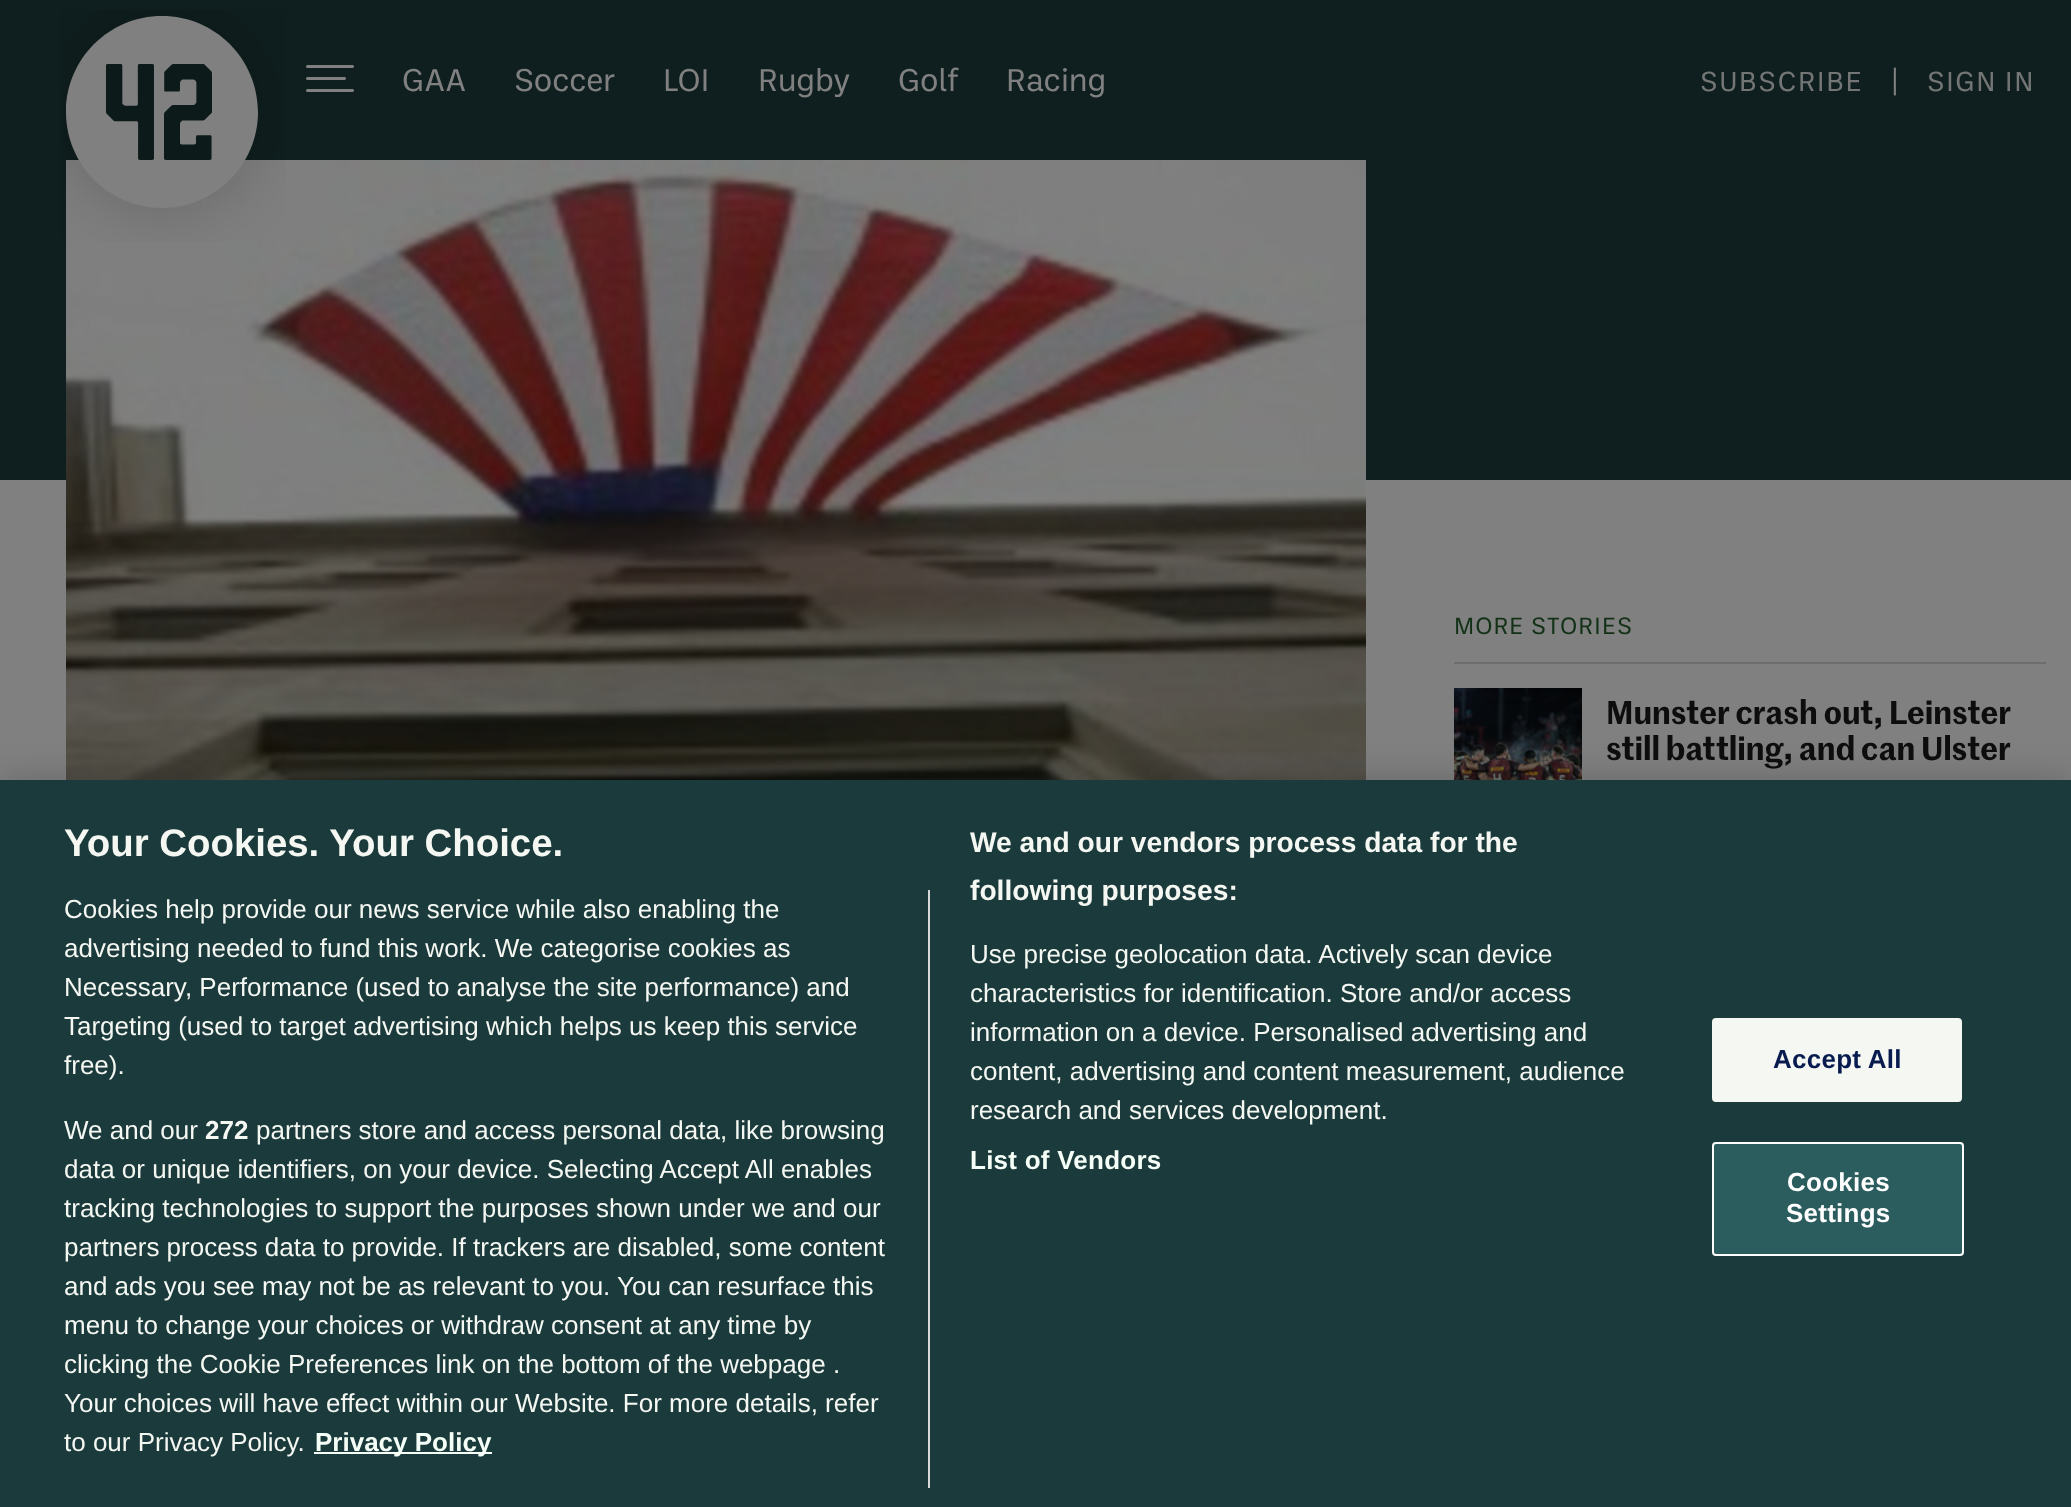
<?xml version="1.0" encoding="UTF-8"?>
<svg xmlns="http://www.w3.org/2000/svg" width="2071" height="1507">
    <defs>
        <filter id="blur1" x="-50%" y="-200%" width="200%" height="500%"><feGaussianBlur stdDeviation="18"/></filter>
    </defs>
    <rect width="100%" height="100%" fill="#808080"/>
    <rect x="0" y="0" width="2071" height="480" fill="#0F1E1E"/>
    <image x="66" y="160" width="1300" height="620" href="img_03.png"/>
    <image x="60" y="10" width="226" height="232" href="img_01.png"/>
    <image x="306" y="65" width="48" height="27" href="img_02.png"/>
    <text x="402" y="91" font-family="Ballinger" font-size="32" fill="#808080">GAA</text>
    <text x="514" y="91" font-family="Ballinger" font-size="32" fill="#808080">Soccer</text>
    <text x="663" y="91" font-family="Ballinger" font-size="32" fill="#808080">LOI</text>
    <text x="758" y="91" font-family="Ballinger" font-size="32" fill="#808080">Rugby</text>
    <text x="898" y="91" font-family="Ballinger" font-size="32" fill="#808080">Golf</text>
    <text x="1006" y="91" font-family="Ballinger" font-size="32" fill="#808080">Racing</text>
    <text x="1700" y="91" font-family="Ballinger" font-size="28" letter-spacing="1.5" fill="#747676">SUBSCRIBE</text>
    <text x="1888" y="90" font-family="Ballinger" font-size="28" letter-spacing="1.5" fill="#808080">|</text>
    <text x="1927" y="91" font-family="Ballinger" font-size="28" letter-spacing="1.5" fill="#747676">SIGN IN</text>
    <rect x="1454" y="662" width="592" height="2" fill="#6E6E6E"/>
    <text x="1454" y="634" font-family="Ballinger" font-size="24" letter-spacing="1" fill="#123117">MORE STORIES</text>
    <image x="1454" y="688" width="128" height="92" href="img_04.png"/>
    <text font-family="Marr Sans" font-size="32" font-weight="600" letter-spacing="-0.1" fill="#0D0D0D">
        <tspan x="1606" y="724">Munster crash out, Leinster</tspan>
        <tspan x="1606" y="760">still battling, and can Ulster</tspan>
    </text>
    <rect x="0" y="780" width="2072" height="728" fill="#000000" fill-opacity="0.2" filter="url(#blur1)"/>
    <rect x="0" y="780" width="2071" height="727" fill="#1B3A3B"/>
    <text x="64" y="856" font-family="Liberation Sans" font-size="38.4" font-weight="700" fill="#F4F7F2">Your Cookies. Your Choice.</text>
    <text font-family="Liberation Sans" font-size="28.2" font-weight="700" fill="#F4F7F2">
        <tspan x="970" y="852">We and our vendors process data for the</tspan>
        <tspan x="970" y="900">following purposes:</tspan>
    </text>
    <text font-family="Liberation Sans" font-size="26" fill="#F4F7F2">
        <tspan x="970" y="963">Use precise geolocation data. Actively scan device</tspan>
        <tspan x="970" y="1002">characteristics for identification. Store and/or access</tspan>
        <tspan x="970" y="1041">information on a device. Personalised advertising and</tspan>
        <tspan x="970" y="1080">content, advertising and content measurement, audience</tspan>
        <tspan x="970" y="1119">research and services development.</tspan>
    </text>
    <text x="970" y="1169" font-family="Liberation Sans" font-size="26" font-weight="700" letter-spacing="0.25" fill="#F5FFF7">List of Vendors</text>
    <rect x="928" y="890" width="2" height="598" fill="#D8D8D8"/>
    <text font-family="Liberation Sans" font-size="26" fill="#F4F7F2">
        <tspan x="64" y="918">Cookies help provide our news service while also enabling the</tspan>
        <tspan x="64" y="957">advertising needed to fund this work. We categorise cookies as</tspan>
        <tspan x="64" y="996">Necessary, Performance (used to analyse the site performance) and</tspan>
        <tspan x="64" y="1035">Targeting (used to target advertising which helps us keep this service</tspan>
        <tspan x="64" y="1074">free).</tspan>
    </text>
    <text x="64" y="1139" font-family="Liberation Sans" font-size="26" fill="#F4F7F2">We and our</text>
    <text x="205" y="1139" font-family="Liberation Sans" font-size="26" font-weight="700" fill="#F4F7F2">272</text>
    <text x="256" y="1139" font-family="Liberation Sans" font-size="26" fill="#F4F7F2">partners store and access personal data, like browsing</text>
    <text font-family="Liberation Sans" font-size="26" fill="#F4F7F2">
        <tspan x="64" y="1178">data or unique identifiers, on your device. Selecting Accept All enables</tspan>
        <tspan x="64" y="1217">tracking technologies to support the purposes shown under we and our</tspan>
        <tspan x="64" y="1256">partners process data to provide. If trackers are disabled, some content</tspan>
        <tspan x="64" y="1295">and ads you see may not be as relevant to you. You can resurface this</tspan>
        <tspan x="64" y="1334">menu to change your choices or withdraw consent at any time by</tspan>
        <tspan x="64" y="1373">clicking the Cookie Preferences link on the bottom of the webpage .</tspan>
        <tspan x="64" y="1412">Your choices will have effect within our Website. For more details, refer</tspan>
        <tspan x="64" y="1451">to our Privacy Policy.</tspan>
    </text>
    <rect x="314" y="1452" width="178" height="2" fill="#F5FFF7"/>
    <text x="315" y="1451" font-family="Liberation Sans" font-size="26" font-weight="700" fill="#F5FFF7">Privacy Policy</text>
    <rect x="1713" y="1019" width="248" height="82" rx="3" fill="#F4F7F2" stroke="#F4F7F2" stroke-width="2"/>
    <text x="1773" y="1068" font-family="Liberation Sans" font-size="26" font-weight="700" letter-spacing="0.25" fill="#081B4F">Accept All</text>
    <rect x="1713" y="1143" width="250" height="112" rx="3" fill="#2B5D5E" stroke="#FFFFFF" stroke-width="2"/>
    <text x="1787" y="1191" font-family="Liberation Sans" font-size="26" font-weight="700" letter-spacing="0.25" fill="#FFFFFF">Cookies</text>
    <text x="1786" y="1222" font-family="Liberation Sans" font-size="26" font-weight="700" letter-spacing="0.25" fill="#FFFFFF">Settings</text>
</svg>
